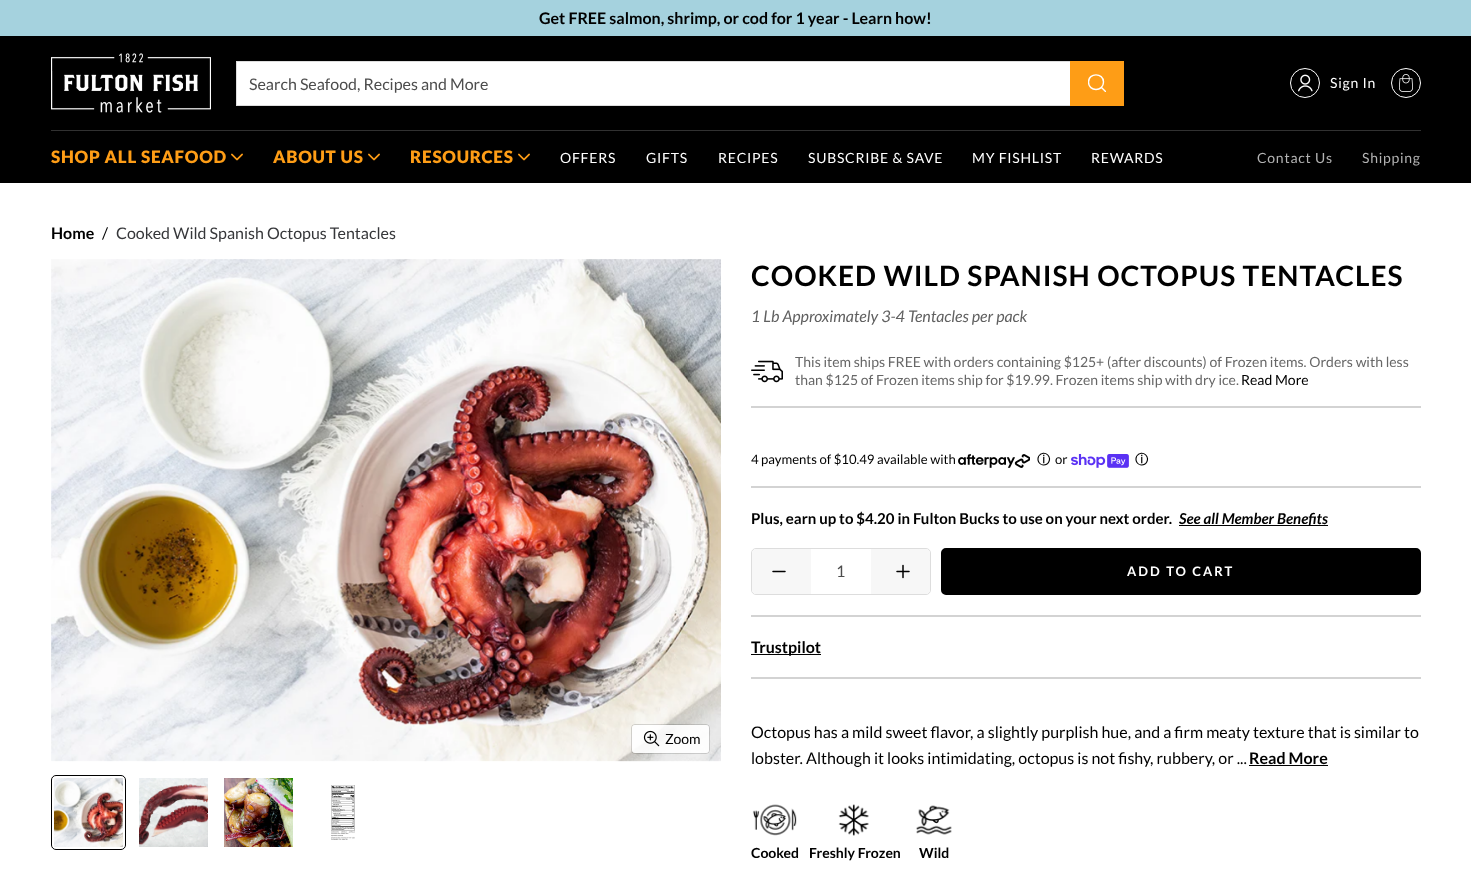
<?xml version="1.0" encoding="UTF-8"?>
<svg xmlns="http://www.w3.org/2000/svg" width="1471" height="875">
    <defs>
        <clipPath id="clip1"><rect x="1088" y="74" width="18" height="18"/></clipPath>
    </defs>
    <rect width="100%" height="100%" fill="#FFFFFF"/>
    <rect x="0" y="0" width="1471" height="36" fill="#A5D2DE"/>
    <text x="539" y="24" font-family="Lato" font-size="16" font-weight="700" fill="#000000">Get FREE salmon, shrimp, or cod for 1 year - Learn how!</text>
    <rect x="0" y="36" width="1471" height="147" fill="#000000"/>
    <rect x="51" y="130" width="1370" height="1" fill="#313131"/>
    <image x="51" y="53" width="160" height="60" href="img_01.png"/>
    <rect x="237" y="62" width="833" height="43" fill="#FFFFFF"/>
    <rect x="236.5" y="61.5" width="887" height="44" fill="none" stroke="#DDDDDD"/>
    <text x="249" y="90" font-family="Lato" font-size="16" fill="#4D4D4D">Search Seafood, Recipes and More</text>
    <rect x="1070" y="61" width="54" height="45" fill="#FE9D16"/>
    <g clip-path="url(#clip1)">
        <path d="M 1101.5 87.5 L 1105.5 91.5 M 1103.5 82 C 1103.5 72.5 1088.5 72.5 1088.5 82 C 1088.5 92 1103.5 92 1103.5 82 Z" fill="none" stroke="#FFFFFF" stroke-width="1.4" stroke-linecap="round" stroke-linejoin="round"/>
    </g>
    <circle cx="1305" cy="83" r="14.5" fill="none" stroke="#FFFFFF"/>
    <image x="1298" y="74" width="15" height="18" href="img_02.png"/>
    <text x="1330" y="88" font-family="Lato" font-size="14" letter-spacing="0.75" fill="#FFFFFF">Sign In</text>
    <circle cx="1406" cy="83" r="14.5" fill="none" stroke="#FFFFFF"/>
    <image x="1399" y="74" width="14" height="18" href="img_03.png"/>
    <text x="51" y="163" font-family="Lato" font-size="17" font-weight="900" letter-spacing="0.75" fill="#FE9D16">SHOP ALL SEAFOOD</text>
    <image x="231" y="153" width="12" height="8" href="img_04.png"/>
    <text x="273" y="163" font-family="Lato" font-size="17" font-weight="900" letter-spacing="0.75" fill="#FE9D16">ABOUT US</text>
    <image x="368" y="153" width="12" height="8" href="img_04.png"/>
    <text x="410" y="163" font-family="Lato" font-size="17" font-weight="900" letter-spacing="0.75" fill="#FE9D16">RESOURCES</text>
    <image x="518" y="153" width="12" height="8" href="img_04.png"/>
    <text x="560" y="163" font-family="Lato" font-size="14" letter-spacing="0.75" fill="#FFFFFF">OFFERS</text>
    <text x="646" y="163" font-family="Lato" font-size="14" letter-spacing="0.75" fill="#FFFFFF">GIFTS</text>
    <text x="718" y="163" font-family="Lato" font-size="14" letter-spacing="0.75" fill="#FFFFFF">RECIPES</text>
    <text x="808" y="163" font-family="Lato" font-size="14" letter-spacing="0.75" fill="#FFFFFF">SUBSCRIBE &amp; SAVE</text>
    <text x="972" y="163" font-family="Lato" font-size="14" letter-spacing="0.75" fill="#FFFFFF">MY FISHLIST</text>
    <text x="1091" y="163" font-family="Lato" font-size="14" letter-spacing="0.75" fill="#FFFFFF">REWARDS</text>
    <text x="1257" y="163" font-family="Lato" font-size="14" letter-spacing="0.75" fill="#B3B3B3">Contact Us</text>
    <text x="1362" y="163" font-family="Lato" font-size="14" letter-spacing="0.75" fill="#B3B3B3">Shipping</text>
    <text x="51" y="239" font-family="Lato" font-size="16" font-weight="700" fill="#000000">Home</text>
    <text x="102" y="239" font-family="Lato" font-size="16" fill="#000000">/</text>
    <text x="116" y="239" font-family="Lato" font-size="16" fill="#36373A">Cooked Wild Spanish Octopus Tentacles</text>
    <image x="51" y="259" width="670" height="503" href="img_05.png"/>
    <image x="720" y="409" width="1" height="14" href="img_06.png"/>
    <rect x="631.5" y="724.5" width="78" height="29" rx="3.5" fill="none" stroke="#000000" stroke-opacity="0.15"/>
    <rect x="632" y="725" width="77" height="28" rx="3" fill="#FFFFFF" fill-opacity="0.9"/>
    <image x="643" y="730" width="17" height="17" href="img_07.png"/>
    <text x="665" y="744" font-family="Lato" font-size="14" fill="#000000">Zoom</text>
    <rect x="51.5" y="775.5" width="74" height="74" rx="4.5" fill="none" stroke="#000000"/>
    <image x="54" y="778" width="69" height="69" href="img_08.png"/>
    <image x="139" y="778" width="69" height="69" href="img_09.png"/>
    <image x="224" y="778" width="69" height="69" href="img_10.png"/>
    <image x="331" y="785" width="24" height="55" href="img_11.png"/>
    <text x="751" y="286" font-family="Lato" font-size="28" font-weight="700" letter-spacing="1" fill="#000000">COOKED WILD SPANISH OCTOPUS TENTACLES</text>
    <text x="751" y="322" font-family="Lato" font-size="16" font-style="italic" fill="#606060">1 Lb Approximately 3-4 Tentacles per pack</text>
    <image x="751" y="360" width="32" height="23" href="img_12.png"/>
    <text font-family="Lato" font-size="14" fill="#676767">
        <tspan x="795" y="367">This item ships FREE with orders containing $125+ (after discounts) of Frozen items. Orders with less</tspan>
        <tspan x="795" y="385">than $125 of Frozen items ship for $19.99. Frozen items ship with dry ice.</tspan>
    </text>
    <text x="1241" y="385" font-family="Lato" font-size="14" fill="#000000">Read More</text>
    <rect x="751" y="406" width="670" height="2" fill="#D3D3D3"/>
    <rect x="751" y="615" width="670" height="2" fill="#D3D3D3"/>
    <text x="751" y="464" font-family="Lato" font-size="13.1" fill="#000000">4 payments of $10.49 available with</text>
    <image x="958" y="454" width="72" height="14" href="img_13.png"/>
    <text x="1037" y="464" font-family="WenQuanYi Zen Hei" font-size="13.1" font-weight="700" fill="#000000">ⓘ</text>
    <text x="1055" y="464" font-family="Lato" font-size="13.1" fill="#000000">or</text>
    <image x="1071" y="454" width="58" height="14" href="img_14.png"/>
    <text x="1135" y="464" font-family="WenQuanYi Zen Hei" font-size="13.1" font-weight="700" fill="#000000">ⓘ</text>
    <rect x="751" y="486" width="670" height="2" fill="#D3D3D3"/>
    <text x="751" y="524" font-family="Lato" font-size="15" font-weight="700" fill="#000000">Plus, earn up to $4.20 in Fulton Bucks to use on your next order.</text>
    <rect x="1179" y="525" width="149" height="1" fill="#000000"/>
    <text x="1179" y="524" font-family="Lato" font-size="15" font-weight="700" font-style="italic" fill="#000000">See all Member Benefits</text>
    <rect x="751.5" y="548.5" width="179" height="46" rx="4.5" fill="none" stroke="#DDDDDD"/>
    <path d="M 756 549 H 811 V 594 H 756 C 754 594 752 592 752 590 V 553 C 752 551 754 549 756 549 Z" fill="#F7F7F7"/>
    <path d="M 785 571.5 H 773" fill="none" stroke="#000000" stroke-width="1.5" stroke-linecap="round"/>
    <text x="836" y="577" font-family="Lato" font-size="16" fill="#4D4D4D">1</text>
    <path d="M 871 549 H 926 C 928 549 930 551 930 553 V 590 C 930 592 928 594 926 594 H 871 Z" fill="#F7F7F7"/>
    <path d="M 909 571.5 H 897 M 903 577.5 V 565.5" fill="none" stroke="#000000" stroke-width="1.5" stroke-linecap="round"/>
    <rect x="942" y="549" width="478" height="45" rx="4" fill="#000000" stroke="#000000" stroke-width="2"/>
    <text x="1127" y="576" font-family="Lato" font-size="13" font-weight="700" letter-spacing="2" fill="#FFFFFF">ADD TO CART</text>
    <rect x="751" y="677" width="670" height="2" fill="#D3D3D3"/>
    <rect x="751" y="654" width="70" height="1" fill="#000000"/>
    <text x="751" y="653" font-family="Lato" font-size="16" font-weight="700" fill="#000000">Trustpilot</text>
    <text font-family="Lato" font-size="16" fill="#000000">
        <tspan x="751" y="738">Octopus has a mild sweet flavor, a slightly purplish hue, and a firm meaty texture that is similar to</tspan>
        <tspan x="751" y="764">lobster. Although it looks intimidating, octopus is not fishy, rubbery, or ...</tspan>
    </text>
    <text x="1249" y="764" font-family="Lato" font-size="16" font-weight="700" fill="#000000">Read More</text>
    <rect x="1249" y="765" width="79" height="1" fill="#000000"/>
    <image x="752" y="804" width="45" height="32" href="img_15.png"/>
    <text x="751" y="858" font-family="Lato" font-size="14" font-weight="700" fill="#000000">Cooked</text>
    <image x="838" y="804" width="31" height="32" href="img_16.png"/>
    <text x="809" y="858" font-family="Lato" font-size="14" font-weight="700" fill="#000000">Freshly Frozen</text>
    <image x="916" y="805" width="36" height="30" href="img_17.png"/>
    <text x="919" y="858" font-family="Lato" font-size="14" font-weight="700" fill="#000000">Wild</text>
</svg>
